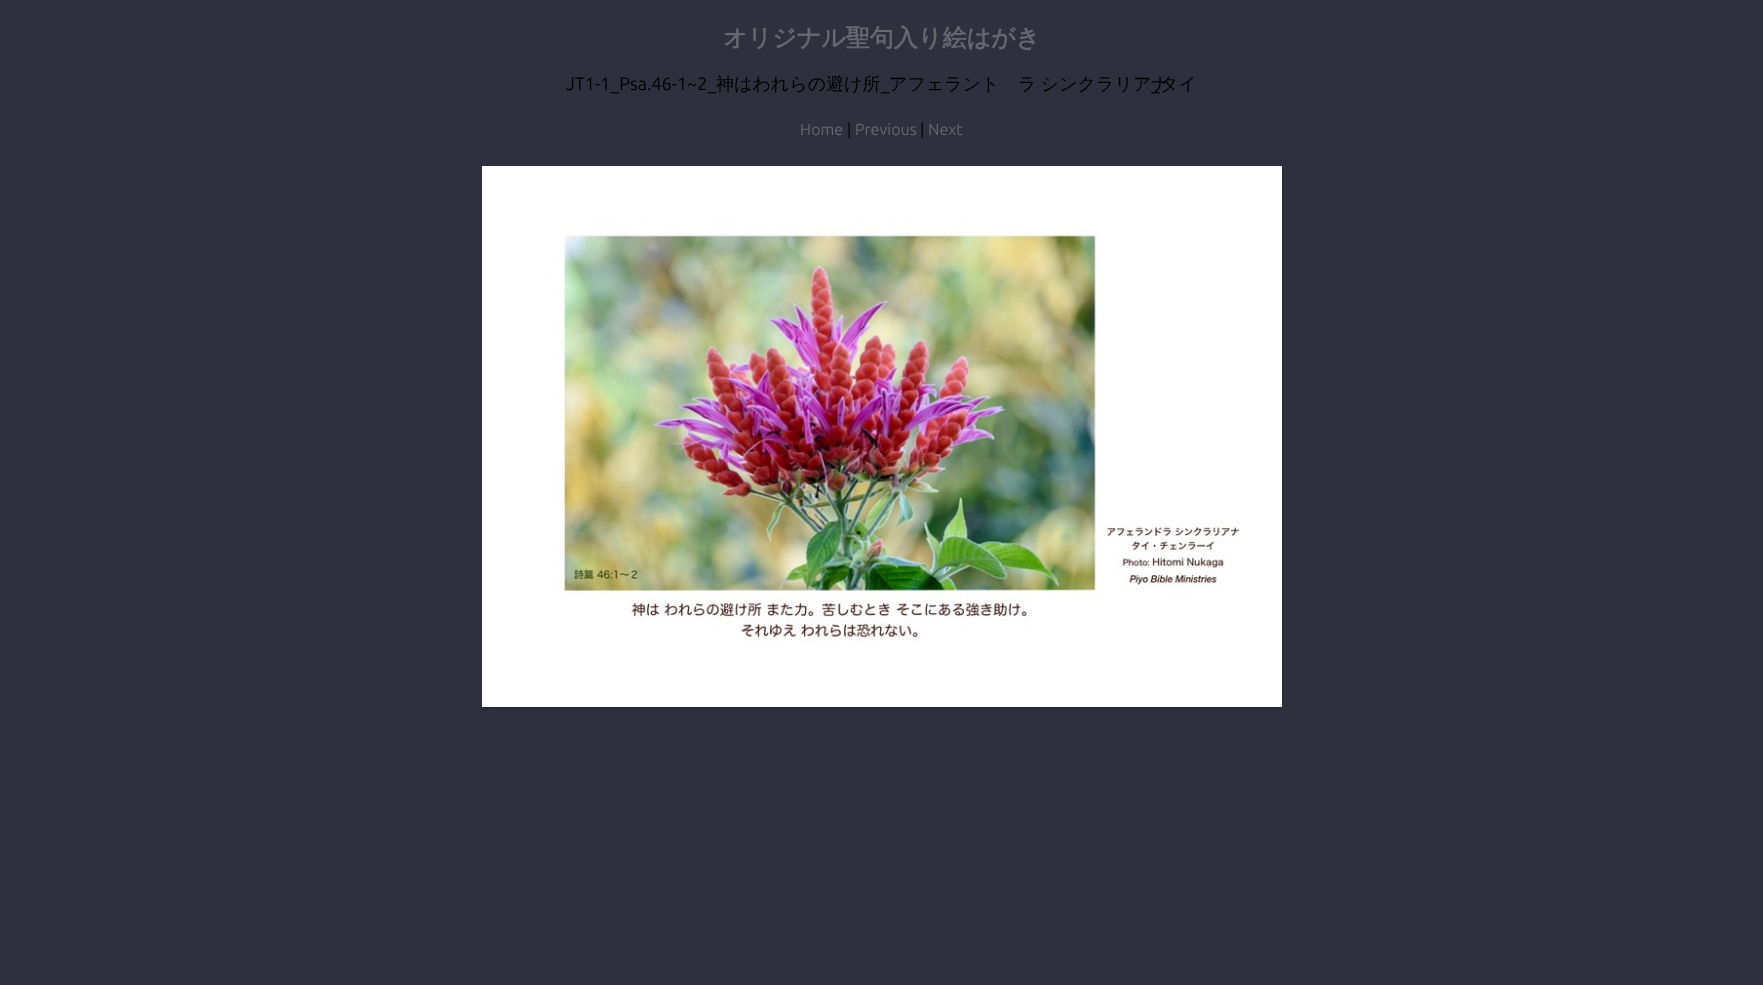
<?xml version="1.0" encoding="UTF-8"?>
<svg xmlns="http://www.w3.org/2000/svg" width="1763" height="985">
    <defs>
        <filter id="blur1" x="-50%" y="-200%" width="200%" height="500%"><feGaussianBlur stdDeviation="1.5"/></filter>
    </defs>
    <rect width="100%" height="100%" fill="#2E313D"/>
    <text x="723" y="46" font-family="WenQuanYi Zen Hei" font-size="24" font-weight="700" fill="#65676F">オリジナル聖句入り絵はがき</text>
    <text x="566" y="90" font-family="Ubuntu" font-size="18" fill="#000000">JT1-1_Psa.46-1~2_</text>
    <text x="716" y="90" font-family="WenQuanYi Zen Hei" font-size="18" font-weight="500" fill="#000000">神はわれらの避け所</text>
    <text x="881" y="90" font-family="Ubuntu" font-size="18" fill="#000000">_</text>
    <text x="889" y="90" word-spacing="-1" font-family="WenQuanYi Zen Hei" font-size="18" font-weight="500" fill="#000000">アフェランドラ シンクラリアナ</text>
    <text x="1151" y="90" font-family="Ubuntu" font-size="18" fill="#000000">_</text>
    <text x="1160" y="90" font-family="WenQuanYi Zen Hei" font-size="18" font-weight="500" fill="#000000">タイ</text>
    <text x="800" y="135" font-family="Ubuntu" font-size="16" fill="#65676F">Home</text>
    <text x="847" y="135" font-family="Ubuntu" font-size="16" fill="#000000">|</text>
    <text x="855" y="135" font-family="Ubuntu" font-size="16" fill="#65676F">Previous</text>
    <text x="920" y="135" font-family="Ubuntu" font-size="16" fill="#000000">|</text>
    <text x="928" y="135" font-family="Ubuntu" font-size="16" fill="#65676F">Next</text>
    <rect x="482" y="168" width="800" height="541" fill="#000000" fill-opacity="0.2" filter="url(#blur1)"/>
    <rect x="487" y="171" width="790" height="531" fill="none" stroke="#FFFFFF" stroke-width="10"/>
    <image x="492" y="176" width="780" height="521" href="img_01.png"/>
</svg>
